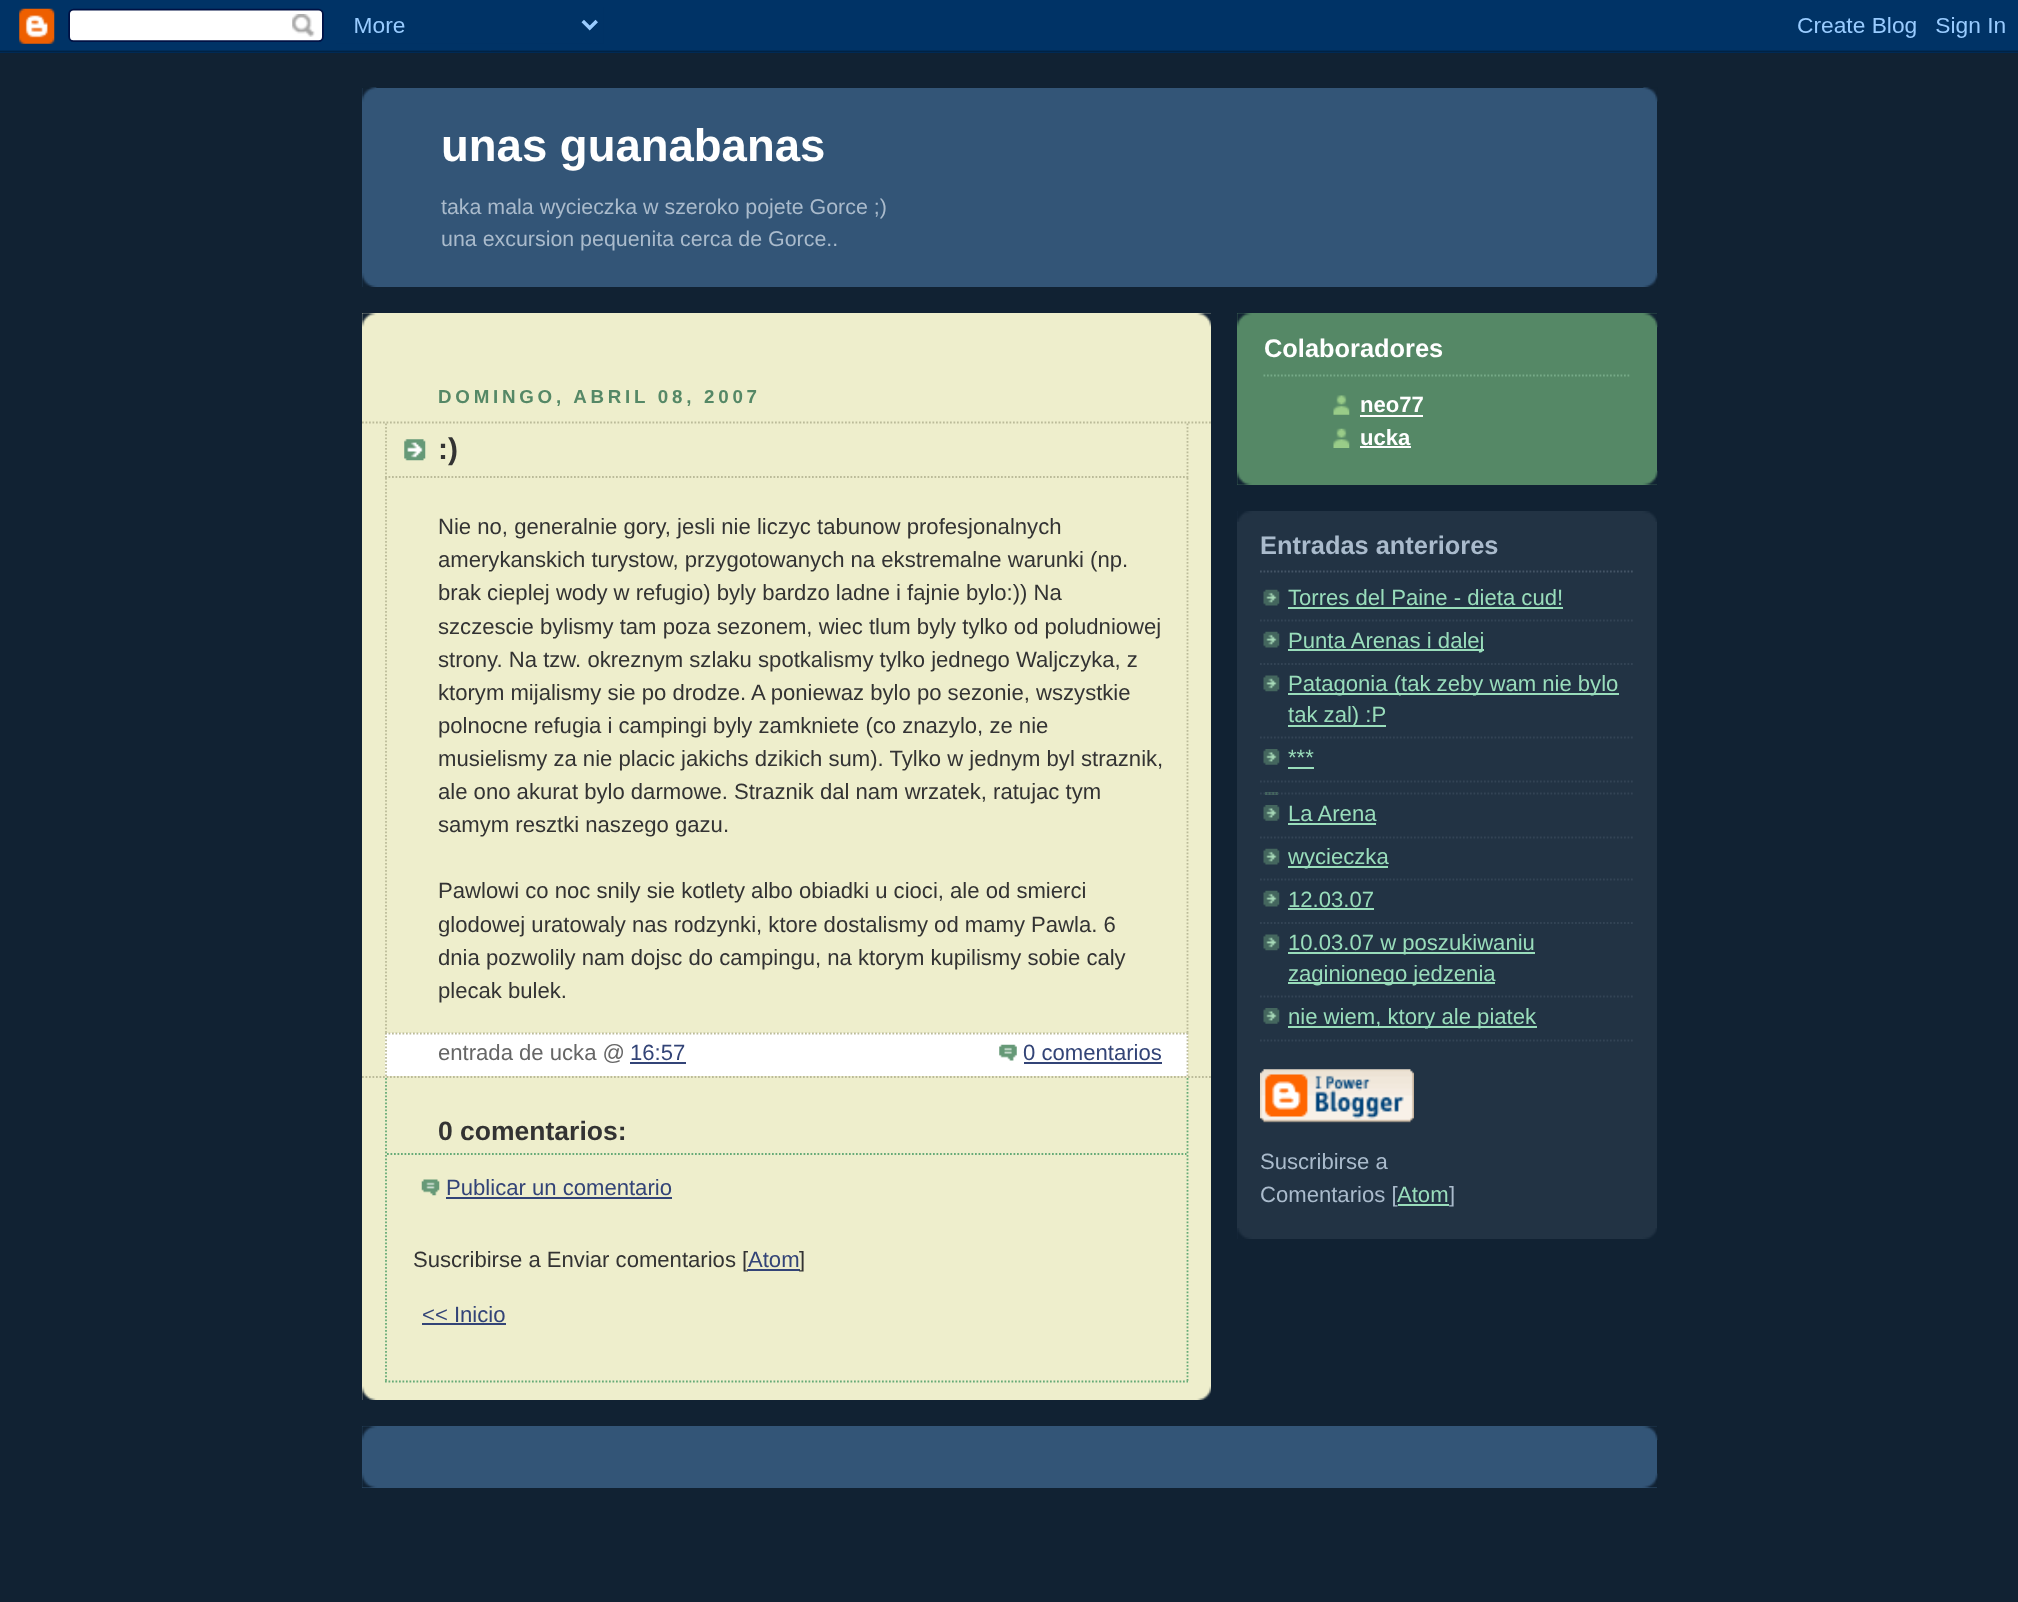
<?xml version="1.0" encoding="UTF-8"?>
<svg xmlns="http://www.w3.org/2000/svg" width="2018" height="1602">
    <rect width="100%" height="100%" fill="#112233"/>
    <image x="0" y="0" width="2018" height="53" href="img_01.png"/>
    <rect x="362" y="88" width="1295" height="199" fill="#335577"/>
    <image x="362" y="273" width="1296" height="14" href="img_02.png"/>
    <image x="362" y="87" width="1296" height="15" href="img_03.png"/>
    <text x="441" y="161" font-family="Liberation Sans" font-size="45.5" font-weight="700" fill="#FFFFFF">unas guanabanas</text>
    <text font-family="Liberation Sans" font-size="21.4" fill="#AABBCC">
        <tspan x="441" y="214">taka mala wycieczka w szeroko pojete Gorce ;)</tspan>
        <tspan x="441" y="246">una excursion pequenita cerca de Gorce..</tspan>
    </text>
    <rect x="362" y="313" width="849" height="1087" fill="#EEEECC"/>
    <image x="362" y="1386" width="849" height="14" href="img_04.png"/>
    <image x="362" y="313" width="849" height="14" href="img_05.png"/>
    <text x="438" y="403" font-family="Liberation Sans" font-size="18.75" font-weight="700" letter-spacing="3.75" fill="#558866">DOMINGO, ABRIL 08, 2007</text>
    <path d="M 362 422.5 H 1211" fill="none" stroke="#BBBB99" stroke-width="1.8" stroke-dasharray="1.75 1.75"/>
    <path d="M 362 1077 H 1211" fill="none" stroke="#BBBB99" stroke-width="1.8" stroke-dasharray="1.75 1.75"/>
    <image x="404" y="439" width="22" height="22" href="img_06.png"/>
    <path d="M 1187.5 423.5 V 478" fill="none" stroke="#BBBB99" stroke-width="1.8" stroke-dasharray="1.75 1.75"/>
    <path d="M 385 477 H 1188" fill="none" stroke="#BBBB99" stroke-width="1.8" stroke-dasharray="1.75 1.75"/>
    <path d="M 386 423.5 V 478" fill="none" stroke="#BBBB99" stroke-width="1.8" stroke-dasharray="1.75 1.75"/>
    <text x="438" y="459" font-family="Liberation Sans" font-size="30" font-weight="700" fill="#333333">:)</text>
    <path d="M 1187.5 478 V 1032.5" fill="none" stroke="#BBBB99" stroke-width="1.8" stroke-dasharray="1.75 1.75"/>
    <path d="M 386 478 V 1032.5" fill="none" stroke="#BBBB99" stroke-width="1.8" stroke-dasharray="1.75 1.75"/>
    <text font-family="Liberation Sans" font-size="22.1" fill="#333333">
        <tspan x="438" y="534">Nie no, generalnie gory, jesli nie liczyc tabunow profesjonalnych</tspan>
        <tspan x="438" y="567">amerykanskich turystow, przygotowanych na ekstremalne warunki (np.</tspan>
        <tspan x="438" y="600">brak cieplej wody w refugio) byly bardzo ladne i fajnie bylo:)) Na</tspan>
        <tspan x="438" y="634">szczescie bylismy tam poza sezonem, wiec tlum byly tylko od poludniowej</tspan>
        <tspan x="438" y="667">strony. Na tzw. okreznym szlaku spotkalismy tylko jednego Waljczyka, z</tspan>
        <tspan x="438" y="700">ktorym mijalismy sie po drodze. A poniewaz bylo po sezonie, wszystkie</tspan>
        <tspan x="438" y="733">polnocne refugia i campingi byly zamkniete (co znazylo, ze nie</tspan>
        <tspan x="438" y="766">musielismy za nie placic jakichs dzikich sum). Tylko w jednym byl straznik,</tspan>
        <tspan x="438" y="799">ale ono akurat bylo darmowe. Straznik dal nam wrzatek, ratujac tym</tspan>
        <tspan x="438" y="832">samym resztki naszego gazu.</tspan>
    </text>
    <text font-family="Liberation Sans" font-size="22.1" fill="#333333">
        <tspan x="438" y="898">Pawlowi co noc snily sie kotlety albo obiadki u cioci, ale od smierci</tspan>
        <tspan x="438" y="932">glodowej uratowaly nas rodzynki, ktore dostalismy od mamy Pawla. 6</tspan>
        <tspan x="438" y="965">dnia pozwolily nam dojsc do campingu, na ktorym kupilismy sobie caly</tspan>
        <tspan x="438" y="998">plecak bulek.</tspan>
    </text>
    <rect x="385" y="1033" width="803" height="43" fill="#FFFFFF"/>
    <path d="M 385 1033.5 H 1188" fill="none" stroke="#BBBB99" stroke-width="1.8" stroke-dasharray="1.75 1.75"/>
    <path d="M 1187.5 1032.5 V 1076" fill="none" stroke="#BBBB99" stroke-width="1.8" stroke-dasharray="1.75 1.75"/>
    <path d="M 386 1032.5 V 1076" fill="none" stroke="#BBBB99" stroke-width="1.8" stroke-dasharray="1.75 1.75"/>
    <text x="438" y="1060" font-family="Liberation Sans" font-size="22.1" fill="#666666">entrada de ucka @</text>
    <text x="630" y="1060" font-family="Liberation Sans" font-size="22.1" fill="#334477">16:57</text>
    <rect x="630" y="1062" width="56" height="2" fill="#334477"/>
    <image x="999" y="1044" width="18" height="17" href="img_07.png"/>
    <text x="1023" y="1060" font-family="Liberation Sans" font-size="22.1" fill="#334477">0 comentarios</text>
    <rect x="1024" y="1062" width="138" height="2" fill="#334477"/>
    <path d="M 1187.5 1078 V 1382.5" fill="none" stroke="#66AA77" stroke-width="1.8" stroke-dasharray="1.75 1.75"/>
    <path d="M 385 1381.5 H 1188" fill="none" stroke="#66AA77" stroke-width="1.8" stroke-dasharray="1.75 1.75"/>
    <path d="M 386 1078 V 1382.5" fill="none" stroke="#66AA77" stroke-width="1.8" stroke-dasharray="1.75 1.75"/>
    <path d="M 387 1154 H 1186.5" fill="none" stroke="#66AA77" stroke-width="1.8" stroke-dasharray="1.75 1.75"/>
    <text x="438" y="1140" font-family="Liberation Sans" font-size="26.5" font-weight="700" fill="#333333">0 comentarios:</text>
    <image x="421" y="1179" width="19" height="17" href="img_08.png"/>
    <text x="446" y="1195" font-family="Liberation Sans" font-size="22.1" fill="#334477">Publicar un comentario</text>
    <rect x="446" y="1197" width="226" height="2" fill="#334477"/>
    <text x="413" y="1267" font-family="Liberation Sans" font-size="22.1" fill="#333333">Suscribirse a Enviar comentarios [</text>
    <text x="748" y="1267" font-family="Liberation Sans" font-size="22.1" fill="#334477">Atom</text>
    <rect x="747" y="1269" width="53" height="2" fill="#334477"/>
    <text x="799" y="1267" font-family="Liberation Sans" font-size="22.1" fill="#333333">]</text>
    <text x="422" y="1322" font-family="Liberation Sans" font-size="22.1" fill="#334477">&lt;&lt; Inicio</text>
    <rect x="422" y="1323" width="84" height="2" fill="#334477"/>
    <rect x="1237" y="313" width="420" height="172" fill="#558866"/>
    <image x="1237" y="470" width="421" height="15" href="img_09.png"/>
    <image x="1237" y="313" width="421" height="15" href="img_10.png"/>
    <text x="1264" y="357" font-family="Liberation Sans" font-size="25.4" font-weight="700" fill="#FFFFFF">Colaboradores</text>
    <path d="M 1263.5 375.5 H 1631" fill="none" stroke="#77AA88" stroke-width="1.8" stroke-dasharray="1.75 1.75"/>
    <image x="1333" y="395" width="17" height="20" href="img_11.png"/>
    <text x="1360" y="412" font-family="Liberation Sans" font-size="22.1" font-weight="700" fill="#FFFFFF">neo77</text>
    <rect x="1360" y="415" width="63" height="2" fill="#FFFFFF"/>
    <image x="1333" y="428" width="17" height="20" href="img_12.png"/>
    <text x="1360" y="445" font-family="Liberation Sans" font-size="22.1" font-weight="700" fill="#FFFFFF">ucka</text>
    <rect x="1360" y="446" width="51" height="2" fill="#FFFFFF"/>
    <rect x="1237" y="511" width="420" height="728" fill="#223344"/>
    <image x="1237" y="511" width="420" height="11" href="img_13.png"/>
    <image x="1237" y="1228" width="420" height="11" href="img_14.png"/>
    <path d="M 1260 571.5 H 1634.5" fill="none" stroke="#445566" stroke-width="1.8" stroke-dasharray="1.75 1.75"/>
    <text x="1260" y="554" font-family="Liberation Sans" font-size="25.4" font-weight="700" fill="#AABBCC">Entradas anteriores</text>
    <image x="1263" y="589" width="17" height="17" href="img_15.png"/>
    <path d="M 1260 620.5 H 1634.5" fill="none" stroke="#334455" stroke-width="1.8" stroke-dasharray="1.75 1.75"/>
    <text x="1288" y="605" font-family="Liberation Sans" font-size="22.1" fill="#99DDBB">Torres del Paine - dieta cud!</text>
    <rect x="1288" y="607" width="275" height="2" fill="#99DDBB"/>
    <image x="1263" y="631" width="17" height="17" href="img_15.png"/>
    <path d="M 1260 664 H 1634.5" fill="none" stroke="#334455" stroke-width="1.8" stroke-dasharray="1.75 1.75"/>
    <rect x="1288" y="649" width="196" height="2" fill="#99DDBB"/>
    <text x="1288" y="648" font-family="Liberation Sans" font-size="22.1" fill="#99DDBB">Punta Arenas i dalej</text>
    <image x="1263" y="675" width="17" height="17" href="img_16.png"/>
    <path d="M 1260 737.5 H 1634.5" fill="none" stroke="#334455" stroke-width="1.8" stroke-dasharray="1.75 1.75"/>
    <rect x="1288" y="693" width="331" height="2" fill="#99DDBB"/>
    <text x="1288" y="691" font-family="Liberation Sans" font-size="22.1" fill="#99DDBB">Patagonia (tak zeby wam nie bylo</text>
    <rect x="1288" y="725" width="98" height="2" fill="#99DDBB"/>
    <text x="1288" y="722" font-family="Liberation Sans" font-size="22.1" fill="#99DDBB">tak zal) :P</text>
    <image x="1263" y="749" width="17" height="16" href="img_17.png"/>
    <path d="M 1260 781.5 H 1634.5" fill="none" stroke="#334455" stroke-width="1.8" stroke-dasharray="1.75 1.75"/>
    <text x="1288" y="765" font-family="Liberation Sans" font-size="22.1" fill="#99DDBB">***</text>
    <rect x="1288" y="767" width="26" height="2" fill="#99DDBB"/>
    <rect x="1265" y="792" width="13" height="3" fill="#44665E"/>
    <path d="M 1260 793.5 H 1634.5" fill="none" stroke="#334455" stroke-width="1.8" stroke-dasharray="1.75 1.75"/>
    <image x="1263" y="805" width="17" height="16" href="img_17.png"/>
    <path d="M 1260 837.5 H 1634.5" fill="none" stroke="#334455" stroke-width="1.8" stroke-dasharray="1.75 1.75"/>
    <text x="1288" y="821" font-family="Liberation Sans" font-size="22.1" fill="#99DDBB">La Arena</text>
    <rect x="1288" y="823" width="88" height="2" fill="#99DDBB"/>
    <image x="1263" y="848" width="17" height="17" href="img_15.png"/>
    <path d="M 1260 879.5 H 1634.5" fill="none" stroke="#334455" stroke-width="1.8" stroke-dasharray="1.75 1.75"/>
    <rect x="1288" y="866" width="100" height="2" fill="#99DDBB"/>
    <text x="1288" y="864" font-family="Liberation Sans" font-size="22.1" fill="#99DDBB">wycieczka</text>
    <image x="1263" y="890" width="17" height="17" href="img_15.png"/>
    <path d="M 1260 923 H 1634.5" fill="none" stroke="#334455" stroke-width="1.8" stroke-dasharray="1.75 1.75"/>
    <text x="1288" y="907" font-family="Liberation Sans" font-size="22.1" fill="#99DDBB">12.03.07</text>
    <rect x="1288" y="908" width="86" height="2" fill="#99DDBB"/>
    <image x="1263" y="934" width="17" height="17" href="img_16.png"/>
    <path d="M 1260 996.5 H 1634.5" fill="none" stroke="#334455" stroke-width="1.8" stroke-dasharray="1.75 1.75"/>
    <rect x="1288" y="952" width="247" height="2" fill="#99DDBB"/>
    <text x="1288" y="950" font-family="Liberation Sans" font-size="22.1" fill="#99DDBB">10.03.07 w poszukiwaniu</text>
    <rect x="1288" y="982" width="207" height="2" fill="#99DDBB"/>
    <text x="1288" y="981" font-family="Liberation Sans" font-size="22.1" fill="#99DDBB">zaginionego jedzenia</text>
    <image x="1263" y="1008" width="17" height="16" href="img_17.png"/>
    <path d="M 1260 1040.5 H 1634.5" fill="none" stroke="#334455" stroke-width="1.8" stroke-dasharray="1.75 1.75"/>
    <rect x="1288" y="1026" width="249" height="2" fill="#99DDBB"/>
    <text x="1288" y="1024" font-family="Liberation Sans" font-size="22.1" fill="#99DDBB">nie wiem, ktory ale piatek</text>
    <image x="1260" y="1069" width="154" height="54" href="img_18.png"/>
    <text font-family="Liberation Sans" font-size="22.1" fill="#AABBCC">
        <tspan x="1260" y="1169">Suscribirse a</tspan>
        <tspan x="1260" y="1202">Comentarios [</tspan>
    </text>
    <text x="1397" y="1202" font-family="Liberation Sans" font-size="22.1" fill="#99DDBB">Atom</text>
    <rect x="1398" y="1204" width="51" height="2" fill="#99DDBB"/>
    <text x="1449" y="1202" font-family="Liberation Sans" font-size="22.1" fill="#AABBCC">]</text>
    <rect x="362" y="1426" width="1295" height="62" fill="#335577"/>
    <image x="362" y="1426" width="1296" height="14" href="img_19.png"/>
    <image x="362" y="1473" width="1296" height="15" href="img_20.png"/>
</svg>
